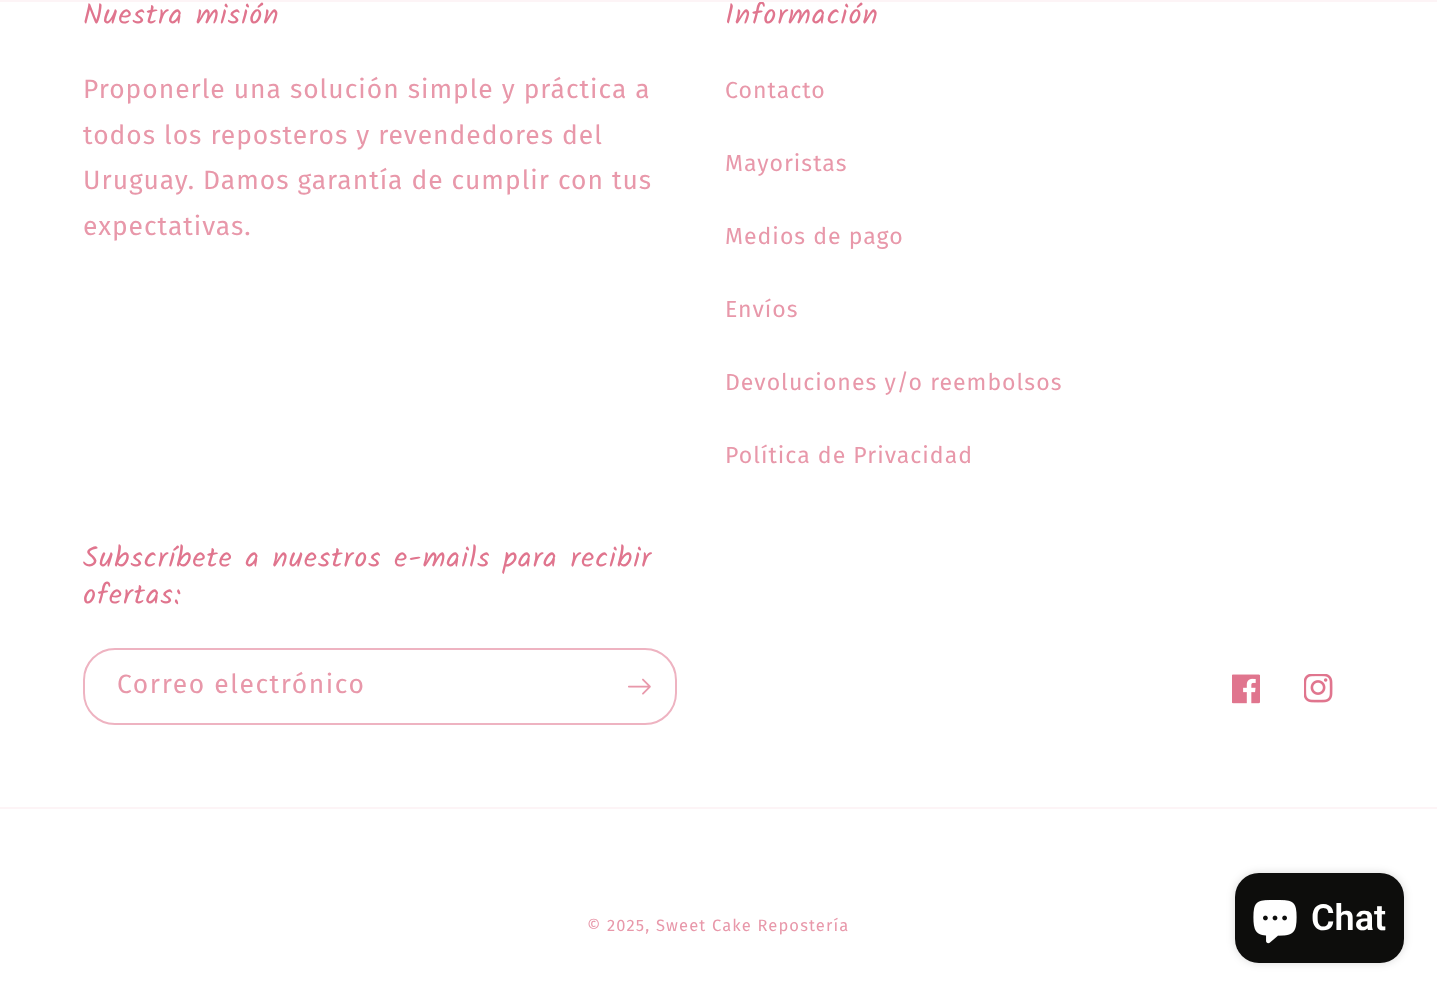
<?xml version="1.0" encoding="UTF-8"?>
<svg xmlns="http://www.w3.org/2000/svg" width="1437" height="994">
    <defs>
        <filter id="blur1" x="-50%" y="-200%" width="200%" height="500%"><feGaussianBlur stdDeviation="4"/></filter>
    </defs>
    <rect width="100%" height="100%" fill="#FFFFFF"/>
    <text x="725" y="24" font-family="Kalam" font-size="28.75" letter-spacing="1.1" fill="#E0758E">Información</text>
    <rect x="0" y="0" width="1437" height="2" fill="#FDF4F6"/>
    <text x="83" y="24" font-family="Kalam" font-size="28.75" letter-spacing="1.1" fill="#E0758E">Nuestra misión</text>
    <text font-family="Fira Sans" font-size="26.4" letter-spacing="1" fill="#E898AA">
        <tspan x="83" y="98">Proponerle una solución simple y práctica a</tspan>
        <tspan x="83" y="144">todos los reposteros y revendedores del</tspan>
        <tspan x="83" y="189">Uruguay. Damos garantía de cumplir con tus</tspan>
        <tspan x="83" y="235">expectativas.</tspan>
    </text>
    <text x="725" y="98" font-family="Fira Sans" font-size="23.1" letter-spacing="1" fill="#E898AA">Contacto</text>
    <text x="725" y="171" font-family="Fira Sans" font-size="23.1" letter-spacing="1" fill="#E898AA">Mayoristas</text>
    <text x="725" y="244" font-family="Fira Sans" font-size="23.1" letter-spacing="1" fill="#E898AA">Medios de pago</text>
    <text x="725" y="317" font-family="Fira Sans" font-size="23.1" letter-spacing="1" fill="#E898AA">Envíos</text>
    <text x="725" y="390" font-family="Fira Sans" font-size="23.1" letter-spacing="1" fill="#E898AA">Devoluciones y/o reembolsos</text>
    <text x="725" y="463" font-family="Fira Sans" font-size="23.1" letter-spacing="1" fill="#E898AA">Política de Privacidad</text>
    <text font-family="Kalam" font-size="28.75" letter-spacing="1.1" fill="#E0758E">
        <tspan x="83" y="567">Subscríbete a nuestros e-mails para recibir</tspan>
        <tspan x="83" y="604">ofertas:</tspan>
    </text>
    <rect x="84" y="649" width="592" height="75" rx="31" fill="none" stroke="#EEB3C1" stroke-width="2"/>
    <text x="117" y="693" font-family="Fira Sans" font-size="26.4" letter-spacing="1.6" fill="#E898AA">Correo electrónico</text>
    <image x="628" y="678" width="23" height="17" href="img_01.png"/>
    <image x="1232" y="674" width="28" height="30" href="img_02.png"/>
    <image x="1304" y="674" width="29" height="29" href="img_03.png"/>
    <rect x="0" y="807" width="1437" height="2" fill="#FDF4F6"/>
    <text x="587" y="931" font-family="Fira Sans" font-size="16.5" letter-spacing="1.15" fill="#E898AA">© 2025, Sweet Cake Repostería</text>
    <rect x="1235" y="873" width="169" height="90" rx="24" fill="#000000" fill-opacity="0.15" filter="url(#blur1)"/>
    <rect x="1235" y="873" width="169" height="90" rx="24" fill="#0D0D0C"/>
    <image x="1253" y="900" width="44" height="44" href="img_04.png"/>
    <text x="1311" y="930" font-family="Roboto" font-size="36" font-weight="600" fill="#FFFFFF">Chat</text>
</svg>
